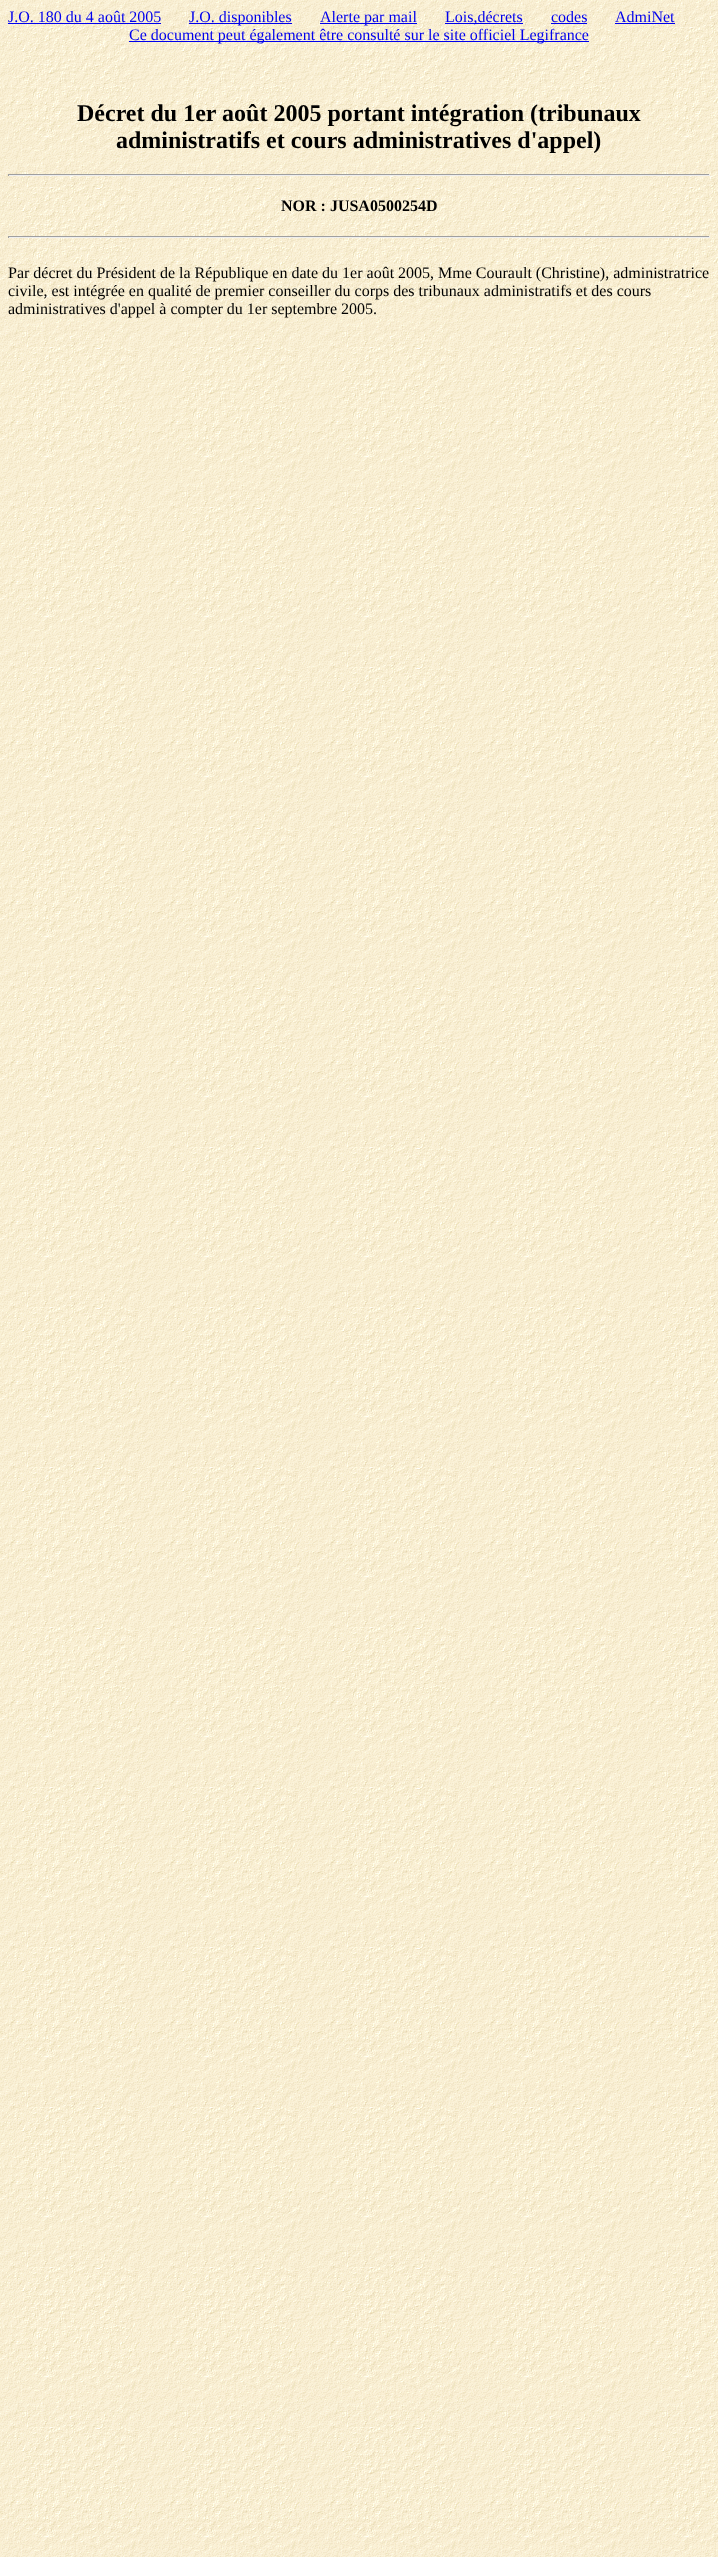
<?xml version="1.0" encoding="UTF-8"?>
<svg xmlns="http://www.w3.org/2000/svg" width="718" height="2557">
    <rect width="100%" height="100%" fill="#FFFFFF"/>
    <image x="0" y="0" width="718" height="2557" href="img_01.png"/>
    <text x="8" y="22" font-family="Liberation Serif" font-size="16" fill="#0000EE">J.O. 180 du 4 août 2005</text>
    <rect x="8" y="23" width="153" height="1" fill="#0000EE"/>
    <rect x="189" y="23" width="103" height="1" fill="#0000EE"/>
    <text x="189" y="22" font-family="Liberation Serif" font-size="16" fill="#0000EE">J.O. disponibles</text>
    <rect x="320" y="23" width="97" height="1" fill="#0000EE"/>
    <text x="320" y="22" font-family="Liberation Serif" font-size="16" fill="#0000EE">Alerte par mail</text>
    <rect x="445" y="23" width="78" height="1" fill="#0000EE"/>
    <text x="445" y="22" font-family="Liberation Serif" font-size="16" fill="#0000EE">Lois,décrets</text>
    <text x="551" y="22" font-family="Liberation Serif" font-size="16" fill="#0000EE">codes</text>
    <rect x="551" y="23" width="36" height="1" fill="#0000EE"/>
    <text x="615" y="22" font-family="Liberation Serif" font-size="16" fill="#0000EE">AdmiNet</text>
    <rect x="615" y="23" width="60" height="1" fill="#0000EE"/>
    <rect x="129" y="41" width="460" height="1" fill="#0000EE"/>
    <text x="129" y="40" font-family="Liberation Serif" font-size="16" fill="#0000EE">Ce document peut également être consulté sur le site officiel Legifrance</text>
    <text x="77" y="121" font-family="Liberation Serif" font-size="24" font-weight="700" fill="#000000">Décret du 1er août 2005 portant intégration (tribunaux</text>
    <text x="116" y="148" font-family="Liberation Serif" font-size="24" font-weight="700" fill="#000000">administratifs et cours administratives d'appel)</text>
    <rect x="8" y="174" width="702" height="1" fill="#9F9F9F"/>
    <rect x="709" y="174" width="1" height="2" fill="#EEEEEE"/>
    <rect x="8" y="175" width="702" height="1" fill="#EEEEEE"/>
    <rect x="8" y="174" width="1" height="2" fill="#9F9F9F"/>
    <text x="281" y="211" font-family="Liberation Serif" font-size="16" font-weight="700" fill="#000000">NOR : JUSA0500254D</text>
    <rect x="8" y="236" width="702" height="1" fill="#9F9F9F"/>
    <rect x="709" y="236" width="1" height="2" fill="#EEEEEE"/>
    <rect x="8" y="237" width="702" height="1" fill="#EEEEEE"/>
    <rect x="8" y="236" width="1" height="2" fill="#9F9F9F"/>
    <text font-family="Liberation Serif" font-size="16" fill="#000000">
        <tspan x="8" y="278">Par décret du Président de la République en date du 1er août 2005, Mme Courault (Christine), administratrice</tspan>
        <tspan x="8" y="296">civile, est intégrée en qualité de premier conseiller du corps des tribunaux administratifs et des cours</tspan>
        <tspan x="8" y="314">administratives d'appel à compter du 1er septembre 2005.</tspan>
    </text>
</svg>
